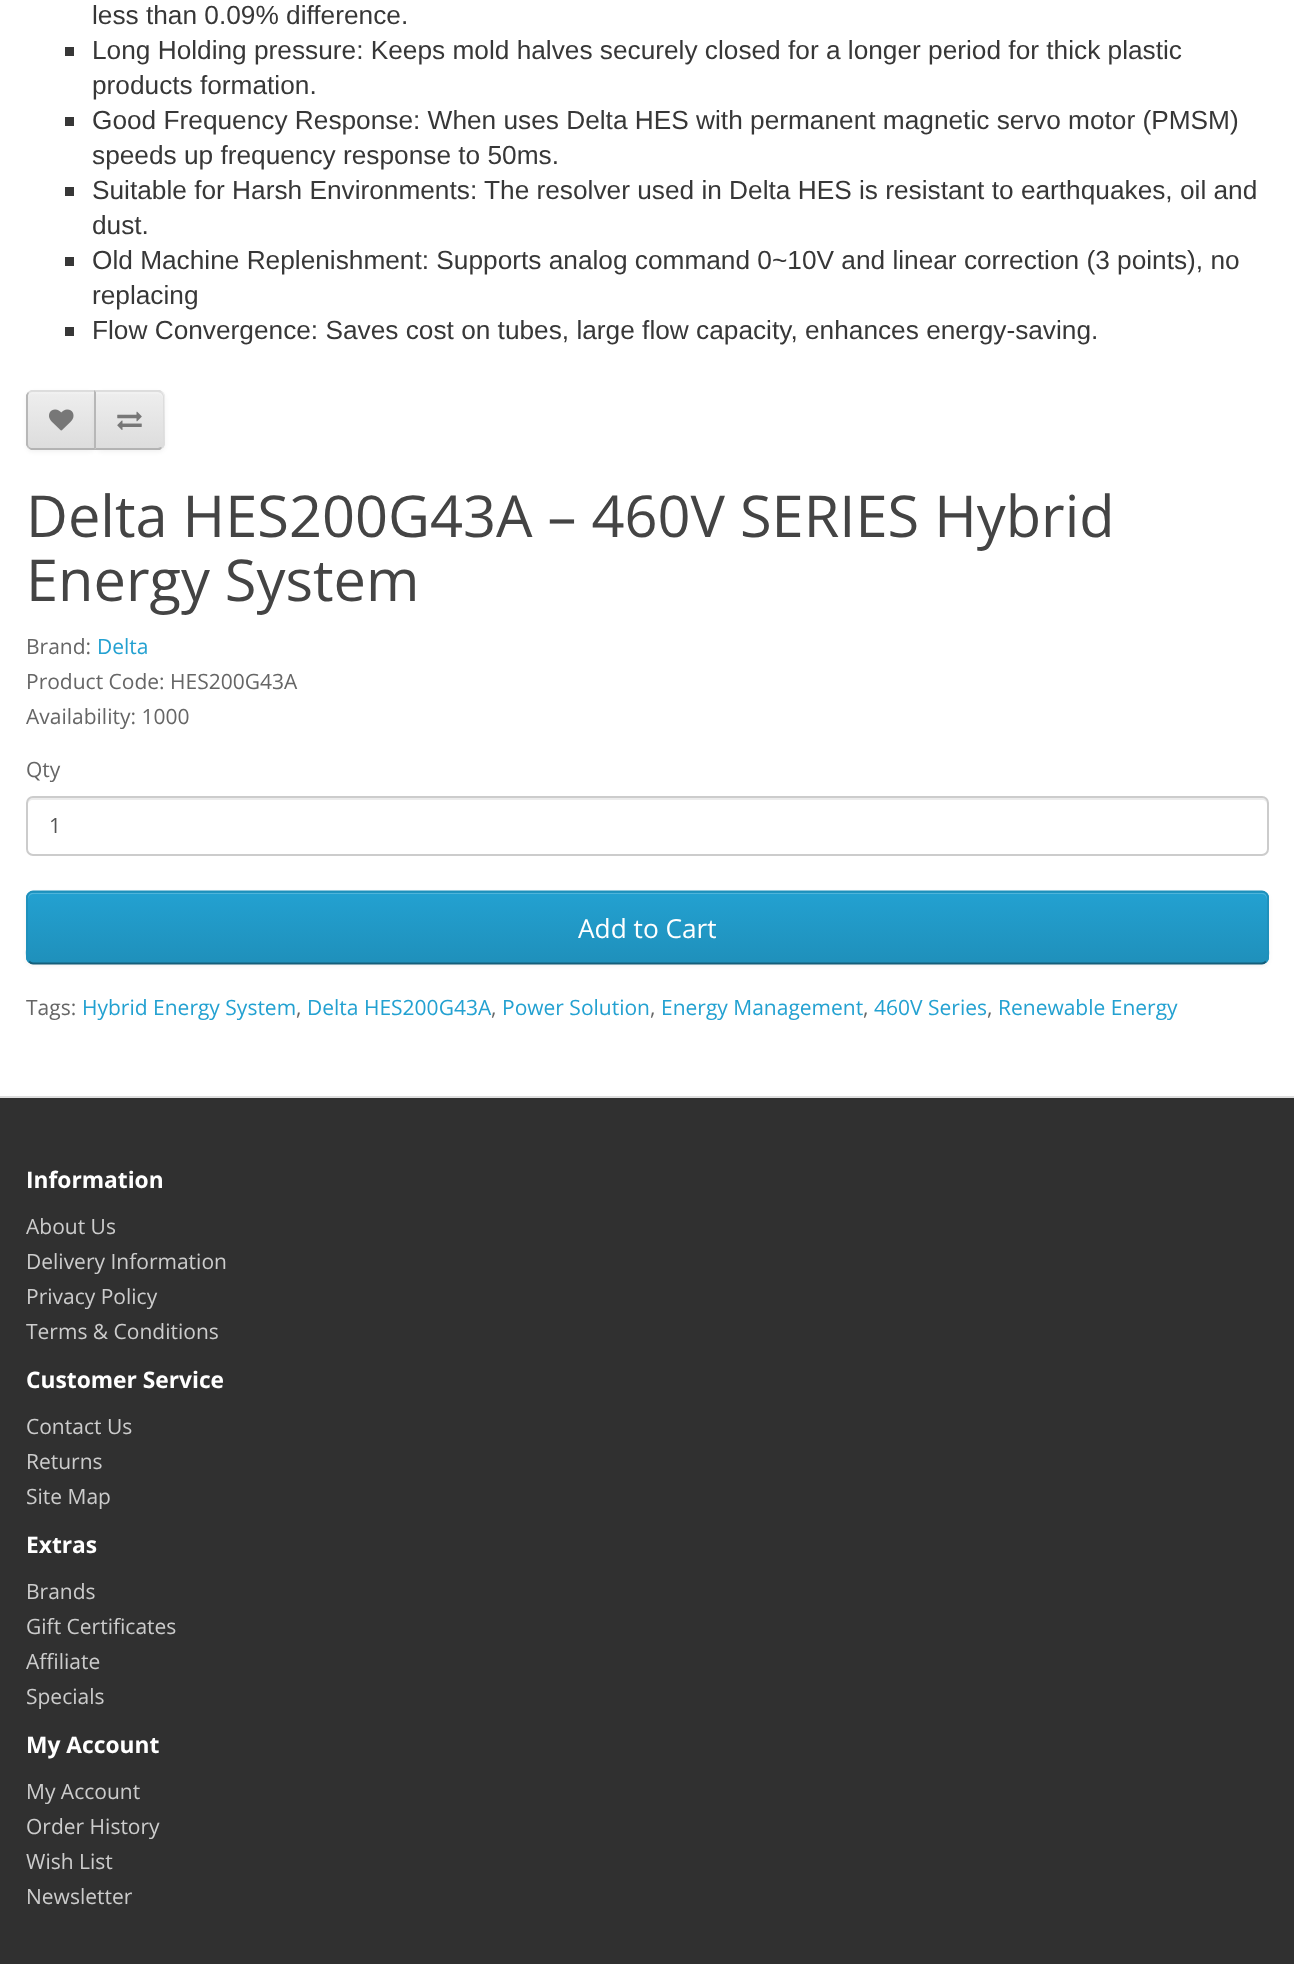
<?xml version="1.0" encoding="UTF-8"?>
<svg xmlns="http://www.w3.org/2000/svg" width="1294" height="1964">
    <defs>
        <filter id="blur1" x="-50%" y="-200%" width="200%" height="500%"><feGaussianBlur stdDeviation="2"/></filter>
        <clipPath id="clip1"><path d="M 33 390 H 96 V 450 H 33 C 29 450 26 447 26 443 V 397 C 26 393 29 390 33 390 Z"/></clipPath>
        <linearGradient id="g1" gradientUnits="userSpaceOnUse" x1="61" y1="392" x2="61" y2="448"><stop offset="0" stop-color="#EEEEEE"/><stop offset="1" stop-color="#DDDDDD"/></linearGradient>
        <clipPath id="clip2"><path d="M 95 390 H 158 C 162 390 165 393 165 397 V 443 C 165 447 162 450 158 450 H 95 Z"/></clipPath>
        <linearGradient id="g2" gradientUnits="userSpaceOnUse" x1="130" y1="392" x2="130" y2="448"><stop offset="0" stop-color="#EEEEEE"/><stop offset="1" stop-color="#DDDDDD"/></linearGradient>
        <clipPath id="clip3"><rect x="26" y="891" width="1243" height="73" rx="7"/></clipPath>
        <linearGradient id="g3" gradientUnits="userSpaceOnUse" x1="648" y1="892" x2="648" y2="963"><stop offset="0" stop-color="#23A1D1"/><stop offset="1" stop-color="#1F90BB"/></linearGradient>
    </defs>
    <rect width="100%" height="100%" fill="#FFFFFF"/>
    <text x="92" y="24" font-family="Liberation Sans" font-size="26.25" fill="#373737">less than 0.09% difference.</text>
    <rect x="65" y="47" width="9" height="9" fill="#373737"/>
    <text font-family="Liberation Sans" font-size="26.25" fill="#373737">
        <tspan x="92" y="59">Long Holding pressure: Keeps mold halves securely closed for a longer period for thick plastic</tspan>
        <tspan x="92" y="94">products formation.</tspan>
    </text>
    <rect x="65" y="117" width="9" height="9" fill="#373737"/>
    <text font-family="Liberation Sans" font-size="26.25" fill="#373737">
        <tspan x="92" y="129">Good Frequency Response: When uses Delta HES with permanent magnetic servo motor (PMSM)</tspan>
        <tspan x="92" y="164">speeds up frequency response to 50ms.</tspan>
    </text>
    <rect x="65" y="187" width="9" height="9" fill="#373737"/>
    <text font-family="Liberation Sans" font-size="26.25" fill="#373737">
        <tspan x="92" y="199">Suitable for Harsh Environments: The resolver used in Delta HES is resistant to earthquakes, oil and</tspan>
        <tspan x="92" y="234">dust.</tspan>
    </text>
    <rect x="65" y="257" width="9" height="9" fill="#373737"/>
    <text font-family="Liberation Sans" font-size="26.25" fill="#373737">
        <tspan x="92" y="269">Old Machine Replenishment: Supports analog command 0~10V and linear correction (3 points), no</tspan>
        <tspan x="92" y="304">replacing</tspan>
    </text>
    <rect x="65" y="327" width="9" height="9" fill="#373737"/>
    <text x="92" y="339" font-family="Liberation Sans" font-size="26.25" fill="#373737">Flow Convergence: Saves cost on tubes, large flow capacity, enhances energy-saving.</text>
    <rect x="26" y="392" width="70" height="60" rx="7" fill="#000000" fill-opacity="0.05" filter="url(#blur1)"/>
    <g clip-path="url(#clip1)">
        <rect x="26" y="392" width="68" height="56" fill="url(#g1)"/>
    </g>
    <path d="M 33 394 H 94 V 448 H 95 V 392 H 33 C 30 392 28 394 28 397 V 399 C 28 396 30 394 33 394 Z" fill="#FFFFFF" fill-opacity="0.2"/>
    <path d="M 33 392 C 32 392 30 392 29 393 L 28 392 L 31 390 H 96 L 94 392 Z" fill="#DDDDDD"/>
    <path d="M 31 450 L 28 448 L 29 447 C 30 448 32 448 33 448 H 94 L 96 450 Z" fill="#B3B3B3"/>
    <path d="M 26 395 L 28 392 L 29 393 C 28 394 28 396 28 397 V 443 C 28 444 28 446 29 447 L 28 448 L 26 445 Z" fill="#B7B7B7"/>
    <image x="49" y="409" width="25" height="22" href="img_01.png"/>
    <rect x="95" y="392" width="70" height="60" rx="7" fill="#000000" fill-opacity="0.05" filter="url(#blur1)"/>
    <path d="M 95 390 H 158 C 162 390 165 393 165 397 V 443 C 165 447 162 450 158 450 H 95 Z" fill="#E7E7E7"/>
    <g clip-path="url(#clip2)">
        <rect x="96" y="392" width="69" height="56" fill="url(#g2)"/>
    </g>
    <path d="M 96 394 H 158 C 160 394 163 396 163 399 V 397 C 163 394 161 392 158 392 H 96 Z" fill="#F1F1F1"/>
    <path d="M 94 390 H 160 L 162 392 L 161 393 C 160 393 159 392 158 392 H 96 Z" fill="#DDDDDD"/>
    <path d="M 162 392 C 163 394 164 395 164 397 V 443 C 164 445 163 446 162 448 L 161 447 C 162 446 163 444 163 443 V 397 C 163 396 162 394 161 393 Z" fill="#DDDDDD"/>
    <path d="M 162 448 L 160 450 H 94 L 96 448 H 158 C 159 448 160 447 161 447 Z" fill="#B3B3B3"/>
    <path d="M 96 392 L 94 390 V 450 L 96 448 Z" fill="#B7B7B7"/>
    <image x="117" y="411" width="25" height="19" href="img_02.png"/>
    <text font-family="Open Sans" font-size="57.75" fill="#444444">
        <tspan x="26" y="537">Delta HES200G43A – 460V SERIES Hybrid</tspan>
        <tspan x="26" y="601">Energy System</tspan>
    </text>
    <text x="26" y="654" font-family="Open Sans" font-size="21" fill="#666666">Brand:</text>
    <text x="97" y="654" font-family="Open Sans" font-size="21" fill="#23A1D1">Delta</text>
    <text font-family="Open Sans" font-size="21" fill="#666666">
        <tspan x="26" y="689">Product Code: HES200G43A</tspan>
        <tspan x="26" y="724">Availability: 1000</tspan>
    </text>
    <text x="26" y="777" font-family="Open Sans" font-size="21" fill="#666666">Qty</text>
    <path d="M 33 800 H 1262 C 1265 800 1267 802 1267 805 V 803 C 1267 800 1265 798 1262 798 H 33 C 30 798 28 800 28 803 V 805 C 28 802 30 800 33 800 Z" fill="#ECECEC"/>
    <rect x="27" y="797" width="1241" height="58" rx="6" fill="none" stroke="#CCCCCC" stroke-width="2"/>
    <text x="49" y="833" font-family="Open Sans" font-size="21" fill="#555555">1</text>
    <rect x="26" y="893" width="1243" height="73" rx="7" fill="#000000" fill-opacity="0.05" filter="url(#blur1)"/>
    <rect x="26" y="891" width="1243" height="73" rx="7" fill="#229AC8"/>
    <g clip-path="url(#clip3)">
        <rect x="26" y="893" width="1243" height="70" fill="url(#g3)"/>
    </g>
    <path d="M 33 894 H 1262 C 1265 894 1267 897 1267 900 V 898 C 1267 895 1265 893 1262 893 H 33 C 30 893 28 895 28 898 V 900 C 28 897 30 894 33 894 Z" fill="#4FB4DA"/>
    <path d="M 1266 961.5 C 1265 962.5 1263.5 963.5 1262 963.5 H 33 C 31.5 963.5 30 962.5 29 961.5" fill="none" stroke="#145E7A" stroke-width="1.8"/>
    <path d="M 29 961.5 C 25.5 958 27 950.5 27 947.5 V 897 C 27.5 894 30 891.5 33 891.5 H 1262 C 1265 891.5 1267.5 894 1268 897 V 947.5 C 1268 950.5 1269.5 958 1266 961.5" fill="none" stroke="#1F90BB" stroke-width="1.8"/>
    <text x="578" y="938" font-family="Open Sans" font-size="26.25" fill="#FFFFFF">Add to Cart</text>
    <text x="26" y="1015" font-family="Open Sans" font-size="21" fill="#666666">Tags:</text>
    <text x="82" y="1015" font-family="Open Sans" font-size="21" fill="#23A1D1">Hybrid Energy System</text>
    <text x="296" y="1015" font-family="Open Sans" font-size="21" fill="#666666">,</text>
    <text x="307" y="1015" font-family="Open Sans" font-size="21" fill="#23A1D1">Delta HES200G43A</text>
    <text x="491" y="1015" font-family="Open Sans" font-size="21" fill="#666666">,</text>
    <text x="502" y="1015" font-family="Open Sans" font-size="21" fill="#23A1D1">Power Solution</text>
    <text x="650" y="1015" font-family="Open Sans" font-size="21" fill="#666666">,</text>
    <text x="661" y="1015" font-family="Open Sans" font-size="21" fill="#23A1D1">Energy Management</text>
    <text x="863" y="1015" font-family="Open Sans" font-size="21" fill="#666666">,</text>
    <text x="874" y="1015" font-family="Open Sans" font-size="21" fill="#23A1D1">460V Series</text>
    <text x="987" y="1015" font-family="Open Sans" font-size="21" fill="#666666">,</text>
    <text x="998" y="1015" font-family="Open Sans" font-size="21" fill="#23A1D1">Renewable Energy</text>
    <rect x="0" y="1098" width="1294" height="866" fill="#303030"/>
    <rect x="0" y="1096" width="1294" height="2" fill="#DDDDDD"/>
    <text x="26" y="1188" font-family="Open Sans" font-size="22.75" font-weight="700" fill="#FFFFFF">Information</text>
    <text font-family="Open Sans" font-size="21" fill="#CCCCCC">
        <tspan x="26" y="1234">About Us</tspan>
        <tspan x="26" y="1269">Delivery Information</tspan>
        <tspan x="26" y="1304">Privacy Policy</tspan>
        <tspan x="26" y="1339">Terms &amp; Conditions</tspan>
    </text>
    <text x="26" y="1388" font-family="Open Sans" font-size="22.75" font-weight="700" fill="#FFFFFF">Customer Service</text>
    <text font-family="Open Sans" font-size="21" fill="#CCCCCC">
        <tspan x="26" y="1434">Contact Us</tspan>
        <tspan x="26" y="1469">Returns</tspan>
        <tspan x="26" y="1504">Site Map</tspan>
    </text>
    <text x="26" y="1553" font-family="Open Sans" font-size="22.75" font-weight="700" fill="#FFFFFF">Extras</text>
    <text font-family="Open Sans" font-size="21" fill="#CCCCCC">
        <tspan x="26" y="1599">Brands</tspan>
        <tspan x="26" y="1634">Gift Certificates</tspan>
        <tspan x="26" y="1669">Affiliate</tspan>
        <tspan x="26" y="1704">Specials</tspan>
    </text>
    <text x="26" y="1753" font-family="Open Sans" font-size="22.75" font-weight="700" fill="#FFFFFF">My Account</text>
    <text font-family="Open Sans" font-size="21" fill="#CCCCCC">
        <tspan x="26" y="1799">My Account</tspan>
        <tspan x="26" y="1834">Order History</tspan>
        <tspan x="26" y="1869">Wish List</tspan>
        <tspan x="26" y="1904">Newsletter</tspan>
    </text>
</svg>
